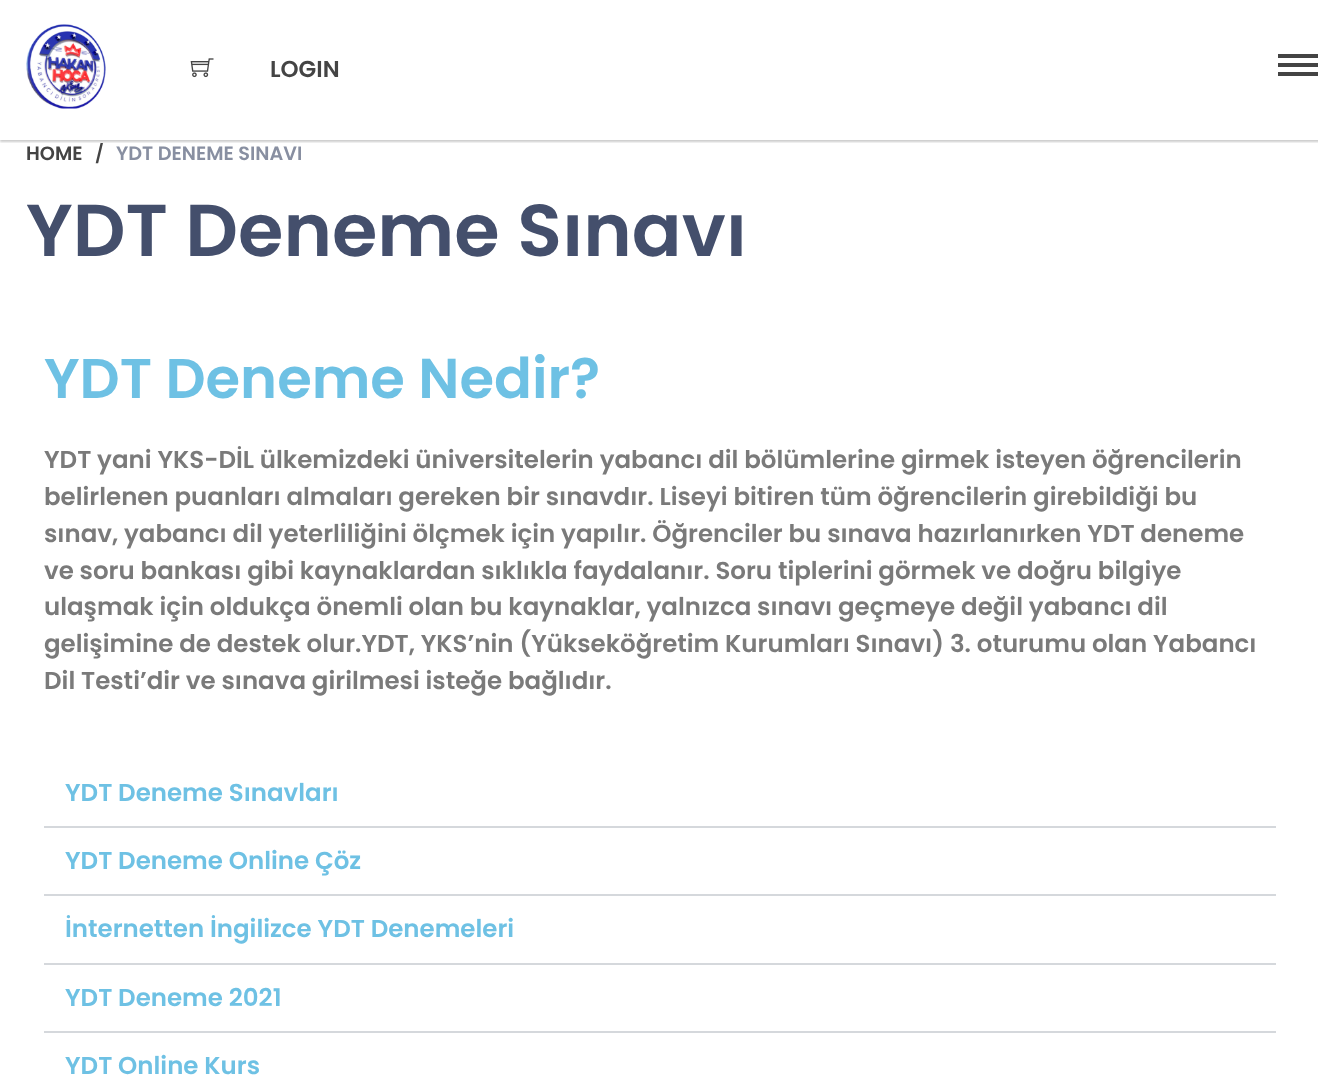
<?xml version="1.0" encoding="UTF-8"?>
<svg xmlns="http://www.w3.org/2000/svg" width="1318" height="1078">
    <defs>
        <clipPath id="clip1"><rect x="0" y="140" width="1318" height="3"/></clipPath>
        <filter id="blur1" x="-50%" y="-200%" width="200%" height="500%"><feGaussianBlur stdDeviation="1"/></filter>
    </defs>
    <rect width="100%" height="100%" fill="#FFFFFF"/>
    <g clip-path="url(#clip1)">
        <rect x="0" y="2" width="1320" height="140" fill="#000000" fill-opacity="0.2" filter="url(#blur1)"/>
    </g>
    <image x="26" y="24" width="80" height="85" href="img_01.png"/>
    <image x="190" y="58" width="24" height="20" href="img_02.png"/>
    <text x="270" y="77" font-family="Poppins" font-size="23" font-weight="600" fill="#444444">LOGIN</text>
    <rect x="1278" y="63" width="40" height="4" fill="#444444"/>
    <rect x="1278" y="54" width="40" height="4" fill="#444444"/>
    <rect x="1278" y="72" width="40" height="4" fill="#444444"/>
    <text x="26" y="160" font-family="Poppins" font-size="19.25" font-weight="600" fill="#444444">HOME</text>
    <text x="95" y="160" font-family="Poppins" font-size="18" font-weight="600" fill="#444444">/</text>
    <text x="116" y="160" font-family="Poppins" font-size="19.25" font-weight="600" fill="#888FA1">YDT DENEME SINAVI</text>
    <text x="26" y="256" font-family="Poppins" font-size="73.5" font-weight="600" fill="#444F6C">YDT Deneme Sınavı</text>
    <text x="44" y="398" font-family="Poppins" font-size="56" font-weight="600" fill="#6EC1E4">YDT Deneme Nedir?</text>
    <text font-family="Poppins" font-size="24.5" font-weight="600" fill="#7A7A7A">
        <tspan x="44" y="468">YDT yani YKS-DİL ülkemizdeki üniversitelerin yabancı dil bölümlerine girmek isteyen öğrencilerin</tspan>
        <tspan x="44" y="505">belirlenen puanları almaları gereken bir sınavdır. Liseyi bitiren tüm öğrencilerin girebildiği bu</tspan>
        <tspan x="44" y="542">sınav, yabancı dil yeterliliğini ölçmek için yapılır. Öğrenciler bu sınava hazırlanırken YDT deneme</tspan>
        <tspan x="44" y="579">ve soru bankası gibi kaynaklardan sıklıkla faydalanır. Soru tiplerini görmek ve doğru bilgiye</tspan>
        <tspan x="44" y="615">ulaşmak için oldukça önemli olan bu kaynaklar, yalnızca sınavı geçmeye değil yabancı dil</tspan>
        <tspan x="44" y="652">gelişimine de destek olur.YDT, YKS’nin (Yükseköğretim Kurumları Sınavı) 3. oturumu olan Yabancı</tspan>
        <tspan x="44" y="689">Dil Testi’dir ve sınava girilmesi isteğe bağlıdır.</tspan>
    </text>
    <rect x="44" y="826" width="1232" height="2" fill="#D5D8DC"/>
    <text x="65" y="801" font-family="Poppins" font-size="24.5" font-weight="600" fill="#6EC1E4">YDT Deneme Sınavları</text>
    <rect x="44" y="894" width="1232" height="2" fill="#D5D8DC"/>
    <text x="65" y="869" font-family="Poppins" font-size="24.5" font-weight="600" fill="#6EC1E4">YDT Deneme Online Çöz</text>
    <rect x="44" y="963" width="1232" height="2" fill="#D5D8DC"/>
    <text x="65" y="937" font-family="Poppins" font-size="24.5" font-weight="600" fill="#6EC1E4">İnternetten İngilizce YDT Denemeleri</text>
    <rect x="44" y="1031" width="1232" height="2" fill="#D5D8DC"/>
    <text x="65" y="1006" font-family="Poppins" font-size="24.5" font-weight="600" fill="#6EC1E4">YDT Deneme 2021</text>
    <text x="65" y="1074" font-family="Poppins" font-size="24.5" font-weight="600" fill="#6EC1E4">YDT Online Kurs</text>
</svg>
